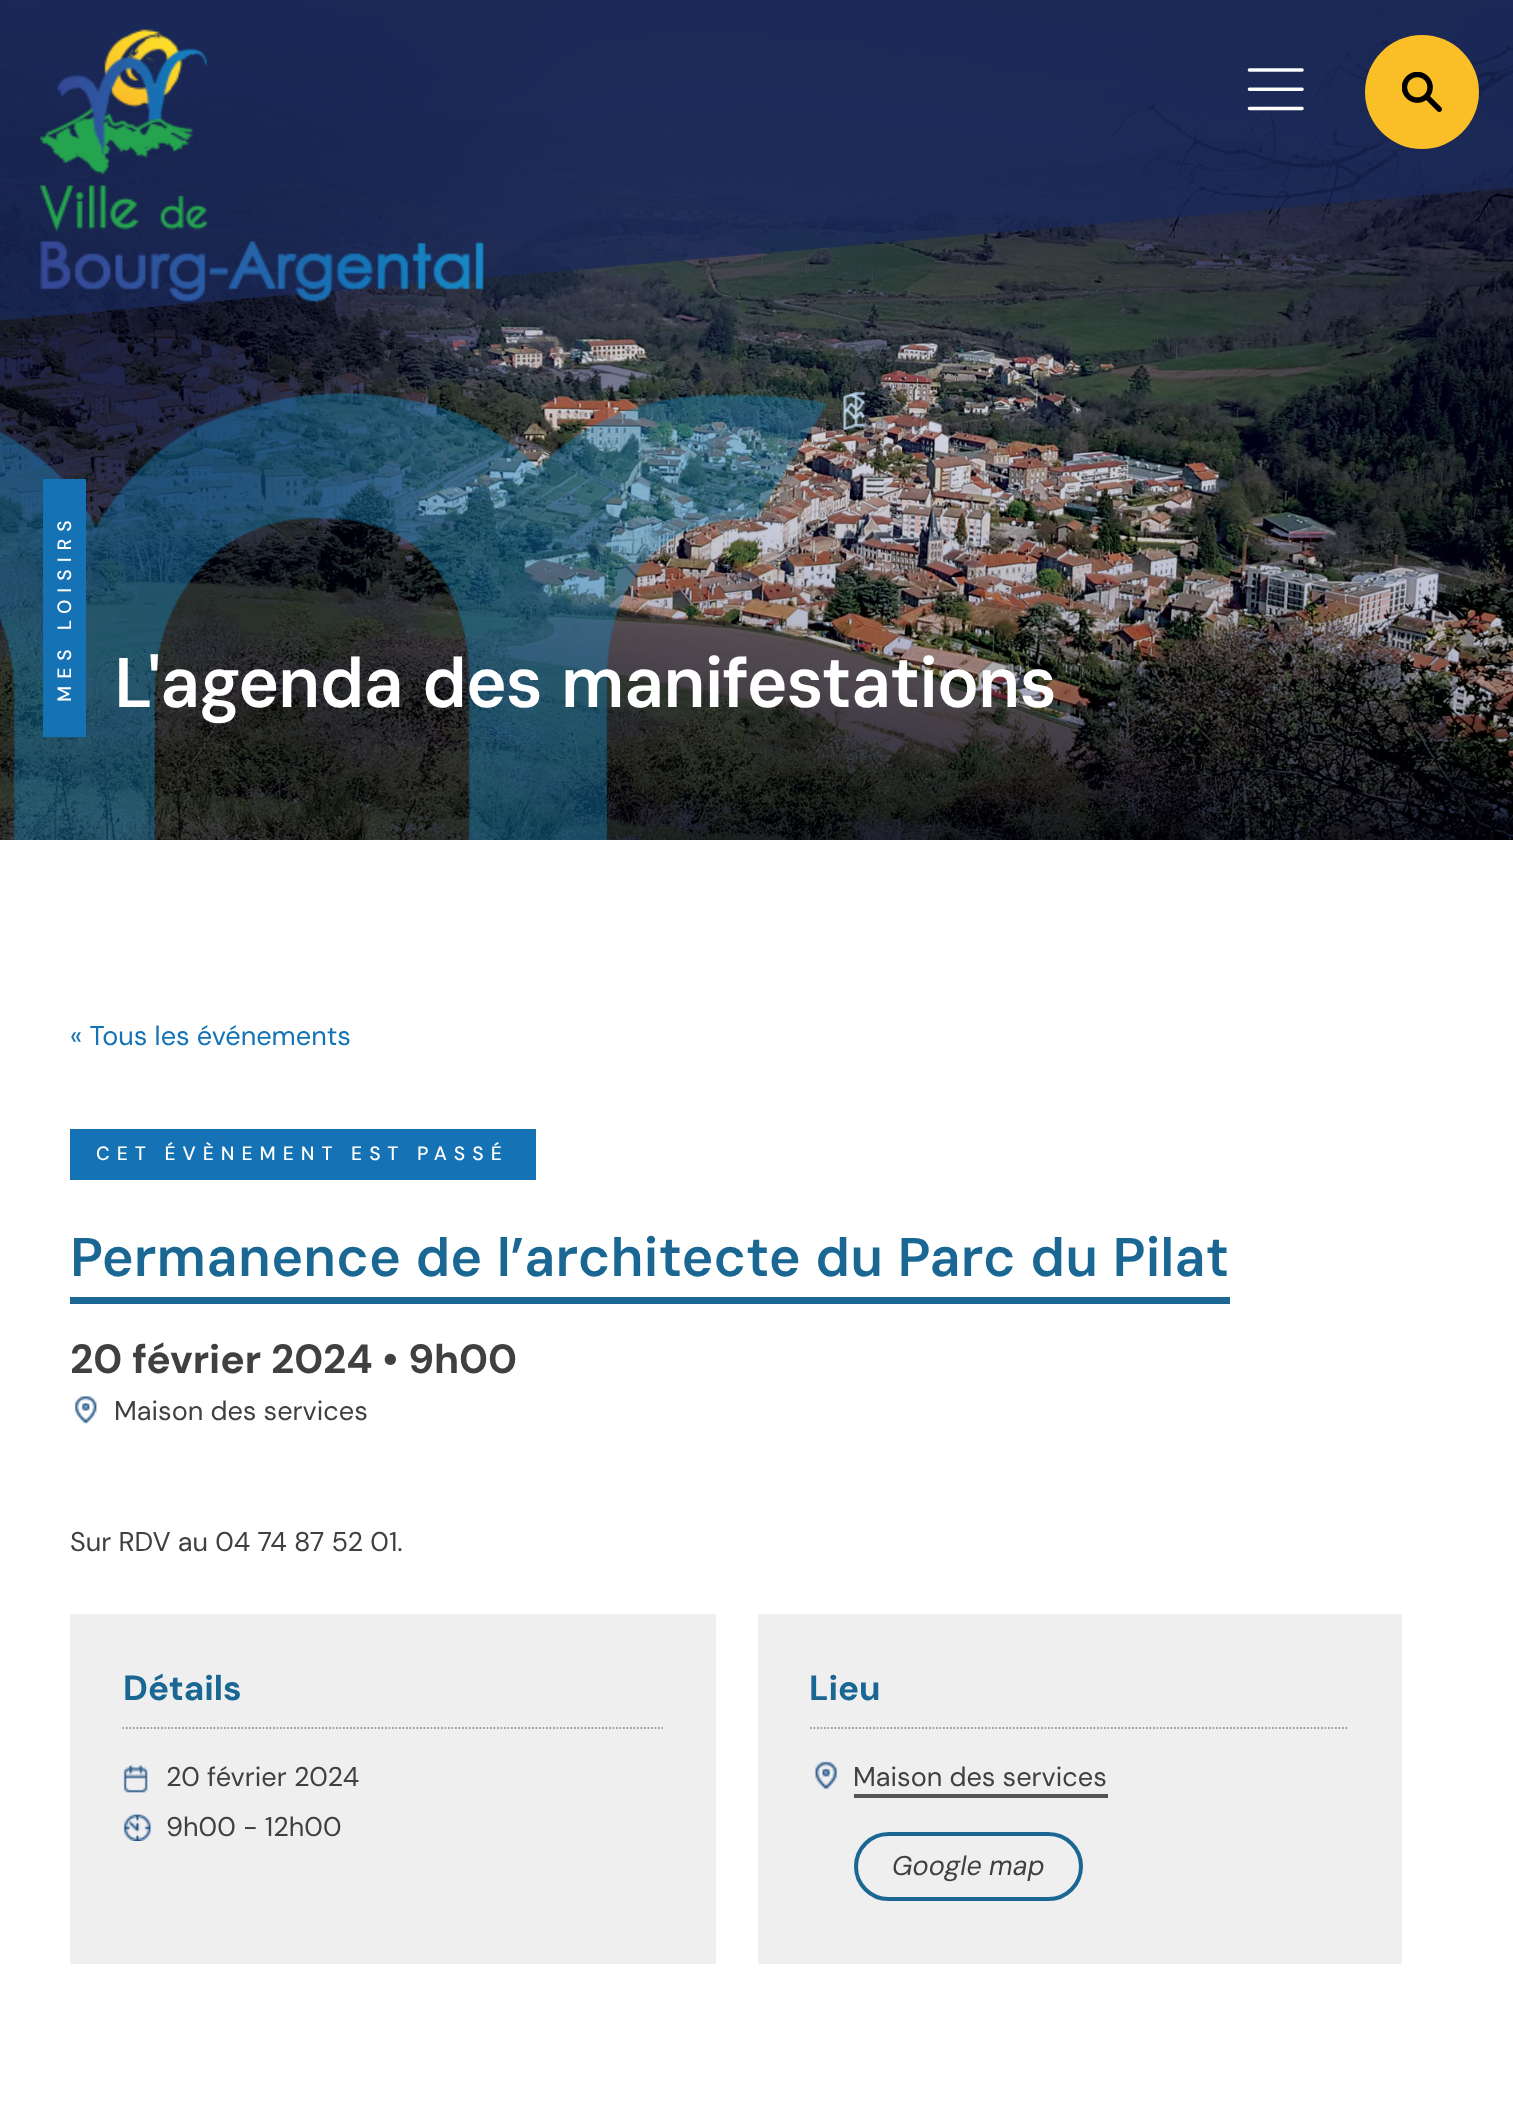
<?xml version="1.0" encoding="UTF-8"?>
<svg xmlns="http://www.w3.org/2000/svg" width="1513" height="2128">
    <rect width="100%" height="100%" fill="#FFFFFF"/>
    <image x="0" y="0" width="1513" height="840" href="img_04.png"/>
    <path d="M -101 -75 L 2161 -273 L 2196 128 L -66 326 Z" fill="#1A2A5B" fill-opacity="0.75"/>
    <image x="39" y="29" width="445" height="273" href="img_01.png"/>
    <image x="1247" y="68" width="57" height="43" href="img_02.png"/>
    <circle cx="1422" cy="92" r="57" fill="#FABF27"/>
    <image x="1402" y="72" width="40" height="40" href="img_03.png"/>
    <image x="0" y="391" width="865" height="449" href="img_05.png"/>
    <rect x="43" y="479" width="43" height="258" fill="#1572B4"/>
    <text x="71" y="702" transform="rotate(-90 71 702)" font-family="DM Sans" font-size="19.25" font-weight="500" letter-spacing="7" fill="#FFFFFF">MES LOISIRS</text>
    <text x="114" y="707" word-spacing="3" font-family="DM Sans" font-size="70" font-weight="600" letter-spacing="-1.25" fill="#FFFFFF">L'agenda des manifestations</text>
    <text x="70" y="1045" font-family="DM Sans" font-size="27.1" fill="#1572B4">« Tous les événements</text>
    <rect x="70" y="1129" width="466" height="51" fill="#1572B4"/>
    <text x="96" y="1160" word-spacing="-0.5" font-family="DM Sans" font-size="19.25" font-weight="500" letter-spacing="7" fill="#FFFFFF">CET ÉVÈNEMENT EST PASSÉ</text>
    <rect x="70" y="1297" width="1160" height="7" fill="#1A6794"/>
    <text x="70" y="1276" word-spacing="1" font-family="DM Sans" font-size="54.25" font-weight="600" fill="#1A6794">Permanence de l’architecte du Parc du Pilat</text>
    <text x="70" y="1373" word-spacing="0.5" font-family="DM Sans" font-size="40.75" font-weight="700" fill="#404040">20 février 2024 • 9h00</text>
    <image x="74" y="1396" width="23" height="28" href="img_06.png"/>
    <text x="114" y="1420" font-family="DM Sans" font-size="27.1" fill="#404040">Maison des services</text>
    <text x="70" y="1551" font-family="DM Sans" font-size="27.1" fill="#404040">Sur RDV au 04 74 87 52 01.</text>
    <rect x="70" y="1614" width="646" height="350" fill="#EFEFF0"/>
    <path d="M 122.5 1728 H 663" fill="none" stroke="#9E9E9E" stroke-width="1.8" stroke-dasharray="1.75 1.75"/>
    <text x="123" y="1700" font-family="'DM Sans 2'" font-size="35" font-weight="700" fill="#1A6794">Détails</text>
    <image x="123" y="1765" width="25" height="28" href="img_07.png"/>
    <text x="166" y="1786" font-family="DM Sans" font-size="27.1" fill="#404040">20 février 2024</text>
    <image x="123" y="1814" width="28" height="27" href="img_08.png"/>
    <text x="166" y="1836" font-family="DM Sans" font-size="27.1" fill="#404040">9h00 - 12h00</text>
    <rect x="758" y="1614" width="644" height="350" fill="#EFEFF0"/>
    <path d="M 810 1728 H 1349" fill="none" stroke="#9E9E9E" stroke-width="1.8" stroke-dasharray="1.75 1.75"/>
    <text x="809" y="1700" font-family="'DM Sans 2'" font-size="35" font-weight="700" fill="#1A6794">Lieu</text>
    <image x="815" y="1761" width="22" height="28" href="img_09.png"/>
    <text x="853" y="1786" font-family="DM Sans" font-size="27.1" fill="#404040">Maison des services</text>
    <rect x="854" y="1794" width="254" height="4" fill="#545454"/>
    <rect x="856" y="1834" width="225" height="65" rx="32.5" fill="none" stroke="#1A6794" stroke-width="4"/>
    <text x="892" y="1875" font-family="DM Sans" font-size="27.1" font-style="italic" fill="#404040">Google map</text>
</svg>
